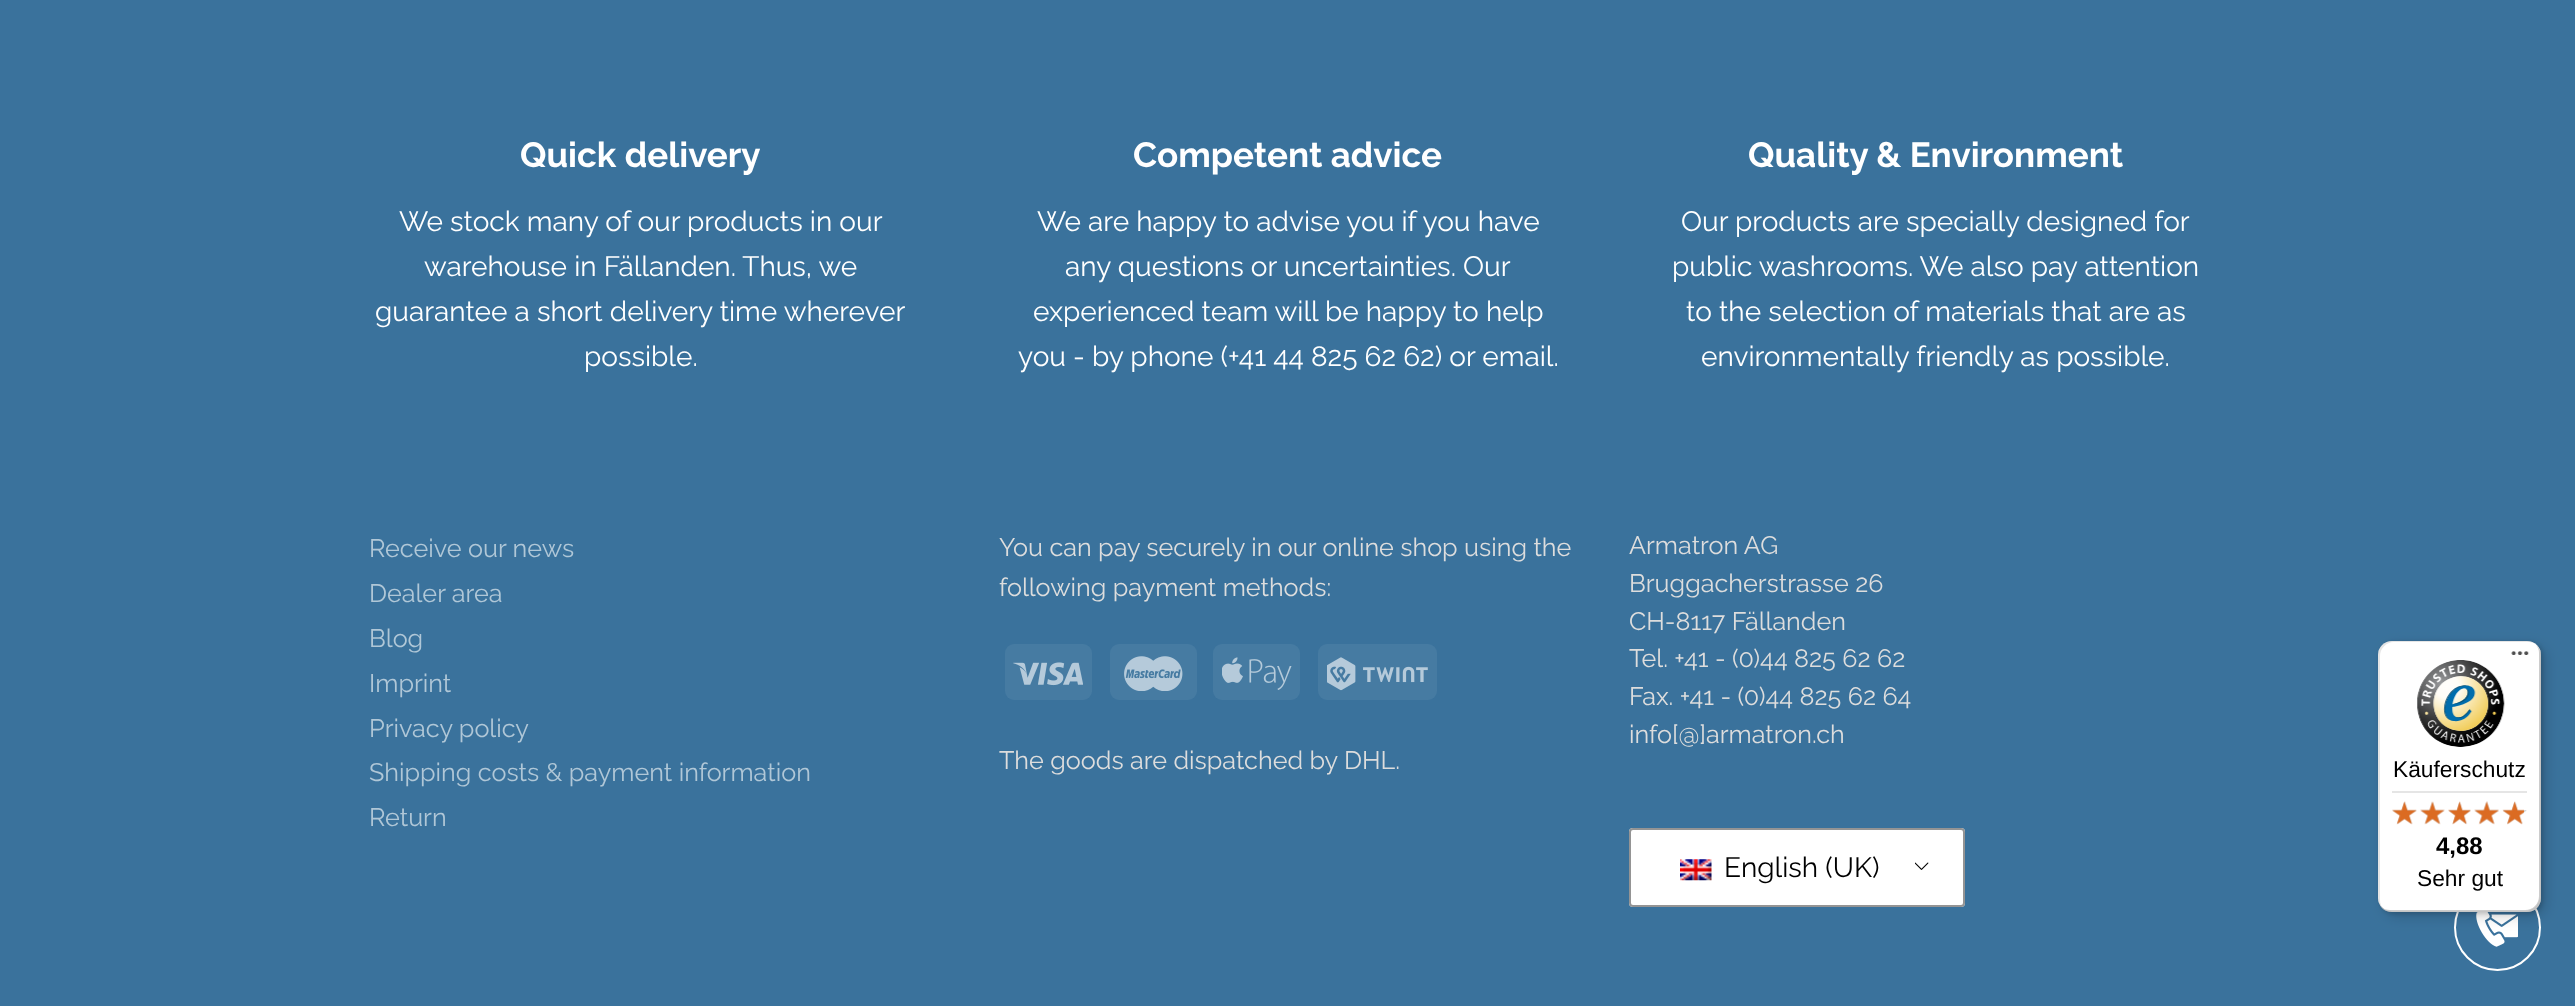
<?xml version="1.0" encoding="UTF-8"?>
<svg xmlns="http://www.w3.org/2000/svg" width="2575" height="1006">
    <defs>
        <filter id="blur1" x="-50%" y="-200%" width="200%" height="500%"><feGaussianBlur stdDeviation="7"/></filter>
        <filter id="blur2" x="-50%" y="-200%" width="200%" height="500%"><feGaussianBlur stdDeviation="2"/></filter>
    </defs>
    <rect width="100%" height="100%" fill="#3A729C"/>
    <text x="520" y="167" font-family="Raleway" font-size="35" font-weight="700" fill="#FFFFFF">Quick delivery</text>
    <text x="399" y="231" font-family="Raleway" font-size="28" fill="#FFFFFF">We stock many of our products in our</text>
    <text x="424" y="276" font-family="Raleway" font-size="28" fill="#FFFFFF">warehouse in Fällanden. Thus, we</text>
    <text x="375" y="321" font-family="Raleway" font-size="28" fill="#FFFFFF">guarantee a short delivery time wherever</text>
    <text x="584" y="366" font-family="Raleway" font-size="28" fill="#FFFFFF">possible.</text>
    <text x="1133" y="167" font-family="Raleway" font-size="35" font-weight="700" fill="#FFFFFF">Competent advice</text>
    <text x="1037" y="231" font-family="Raleway" font-size="28" fill="#FFFFFF">We are happy to advise you if you have</text>
    <text x="1065" y="276" font-family="Raleway" font-size="28" fill="#FFFFFF">any questions or uncertainties. Our</text>
    <text x="1033" y="321" font-family="Raleway" font-size="28" fill="#FFFFFF">experienced team will be happy to help</text>
    <text x="1018" y="366" font-family="Raleway" font-size="28" fill="#FFFFFF">you - by phone (+41 44 825 62 62) or email.</text>
    <text x="1748" y="167" font-family="Raleway" font-size="35" font-weight="700" fill="#FFFFFF">Quality &amp; Environment</text>
    <text x="1681" y="231" font-family="Raleway" font-size="28" fill="#FFFFFF">Our products are specially designed for</text>
    <text x="1672" y="276" font-family="Raleway" font-size="28" fill="#FFFFFF">public washrooms. We also pay attention</text>
    <text x="1686" y="321" font-family="Raleway" font-size="28" fill="#FFFFFF">to the selection of materials that are as</text>
    <text x="1701" y="366" font-family="Raleway" font-size="28" fill="#FFFFFF">environmentally friendly as possible.</text>
    <text font-family="Raleway" font-size="25.2" fill="#B0C7D7">
        <tspan x="369" y="557">Receive our news</tspan>
        <tspan x="369" y="602">Dealer area</tspan>
        <tspan x="369" y="647">Blog</tspan>
        <tspan x="369" y="692">Imprint</tspan>
        <tspan x="369" y="737">Privacy policy</tspan>
        <tspan x="369" y="781">Shipping costs &amp; payment information</tspan>
        <tspan x="369" y="826">Return</tspan>
    </text>
    <text font-family="Raleway" font-size="25.2" fill="#DDDDDD">
        <tspan x="999" y="556">You can pay securely in our online shop using the</tspan>
        <tspan x="999" y="596">following payment methods:</tspan>
    </text>
    <rect x="1005" y="644" width="87" height="56" rx="9" fill="#467BA2"/>
    <image x="1013" y="662" width="70" height="24" href="img_01.png"/>
    <rect x="1110" y="644" width="87" height="56" rx="9" fill="#467BA2"/>
    <image x="1124" y="656" width="59" height="35" href="img_02.png"/>
    <rect x="1213" y="644" width="87" height="56" rx="9" fill="#467BA2"/>
    <image x="1222" y="657" width="70" height="33" href="img_03.png"/>
    <rect x="1318" y="644" width="119" height="56" rx="9" fill="#467BA2"/>
    <image x="1327" y="657" width="101" height="34" href="img_04.png"/>
    <text x="999" y="769" font-family="Raleway" font-size="25.2" fill="#DDDDDD">The goods are dispatched by DHL.</text>
    <text font-family="Raleway" font-size="25.2" fill="#DDDDDD">
        <tspan x="1629" y="554">Armatron AG</tspan>
        <tspan x="1629" y="592">Bruggacherstrasse 26</tspan>
        <tspan x="1629" y="630">CH-8117 Fällanden</tspan>
        <tspan x="1629" y="667">Tel. +41 - (0)44 825 62 62</tspan>
        <tspan x="1629" y="705">Fax. +41 - (0)44 825 62 64</tspan>
        <tspan x="1629" y="743">info[@]armatron.ch</tspan>
    </text>
    <rect x="1629" y="828" width="336" height="79" rx="4" fill="#FFFFFF"/>
    <image x="1915" y="862" width="14" height="8" href="img_05.png"/>
    <rect x="1630" y="829" width="334" height="77" rx="3" fill="none" stroke="#949494" stroke-width="2"/>
    <image x="1680" y="859" width="32" height="22" href="img_06.png"/>
    <text x="1724" y="877" font-family="Raleway" font-size="28" fill="#000000">English (UK)</text>
    <circle cx="2497.5" cy="927.5" r="42.5" fill="none" stroke="#FFFFFF" stroke-width="2"/>
    <image x="2476" y="912" width="42" height="35" href="img_19.png"/>
    <rect x="2384" y="646" width="162" height="271" rx="14" fill="#000000" fill-opacity="0.15" filter="url(#blur1)"/>
    <rect x="2380" y="642" width="163" height="272" rx="14" fill="#000000" fill-opacity="0.15" filter="url(#blur2)"/>
    <rect x="2378" y="641" width="163" height="271" rx="14" fill="#FFFFFF"/>
    <path d="M 2394 642 H 2529 C 2531 642 2534 643 2536 644 C 2533 642 2530 641 2527 641 H 2392 C 2384 641 2378 647 2378 655 V 898 C 2378 903 2380 907 2384 909 C 2381 907 2380 903 2380 900 V 656 C 2380 649 2386 642 2394 642 Z" fill="#000000" fill-opacity="0.1"/>
    <path d="M 2381 906 C 2383 910 2387 912 2392 912 H 2527 C 2535 912 2541 906 2541 898 V 655 C 2541 651 2539 647 2536 645 C 2538 647 2539 650 2539 653 V 896 C 2539 904 2533 910 2525 910 H 2390 C 2387 910 2383 909 2381 906 Z" fill="#000000" fill-opacity="0.2"/>
    <path d="M 2381 906 C 2383 910 2387 912 2392 912 H 2527 C 2535 912 2541 906 2541 898 V 655 C 2541 652 2540 649 2539 647 C 2540 649 2540 651 2540 653 V 897 C 2540 904 2534 911 2526 911 H 2391 C 2387 911 2383 909 2381 906 Z" fill="#323232" fill-opacity="0.2"/>
    <path d="M 2381 907 C 2383 910 2387 912 2392 912 H 2527 C 2535 912 2541 906 2541 898 V 655 C 2541 651 2540 648 2537 646 C 2539 648 2540 651 2540 654 V 897 C 2540 905 2534 911 2526 911 H 2391 C 2387 911 2384 909 2381 907 Z" fill="#FFFFFF" fill-opacity="0.3"/>
    <image x="2511" y="651" width="18" height="4" href="img_07.png"/>
    <image x="2417" y="660" width="88" height="87" href="img_08.png"/>
    <text x="2393" y="777" font-family="Liberation Sans" font-size="22.75" fill="#000000">Käuferschutz</text>
    <rect x="2392" y="791" width="135" height="2" fill="#E5E5E5"/>
    <image x="2392" y="802" width="25" height="22" href="img_09.png"/>
    <image x="2420" y="802" width="25" height="22" href="img_10.png"/>
    <image x="2448" y="802" width="23" height="22" href="img_11.png"/>
    <image x="2474" y="801" width="25" height="23" href="img_12.png"/>
    <image x="2503" y="802" width="24" height="22" href="img_13.png"/>
    <image x="2392" y="801" width="25" height="24" href="img_14.png"/>
    <image x="2420" y="801" width="25" height="24" href="img_15.png"/>
    <image x="2448" y="801" width="23" height="24" href="img_16.png"/>
    <image x="2474" y="801" width="25" height="24" href="img_17.png"/>
    <image x="2502" y="801" width="22" height="24" href="img_18.png"/>
    <text x="2436" y="854" font-family="Liberation Sans" font-size="24" font-weight="700" fill="#000000">4,88</text>
    <text x="2417" y="886" font-family="Liberation Sans" font-size="22.75" fill="#000000">Sehr gut</text>
</svg>
